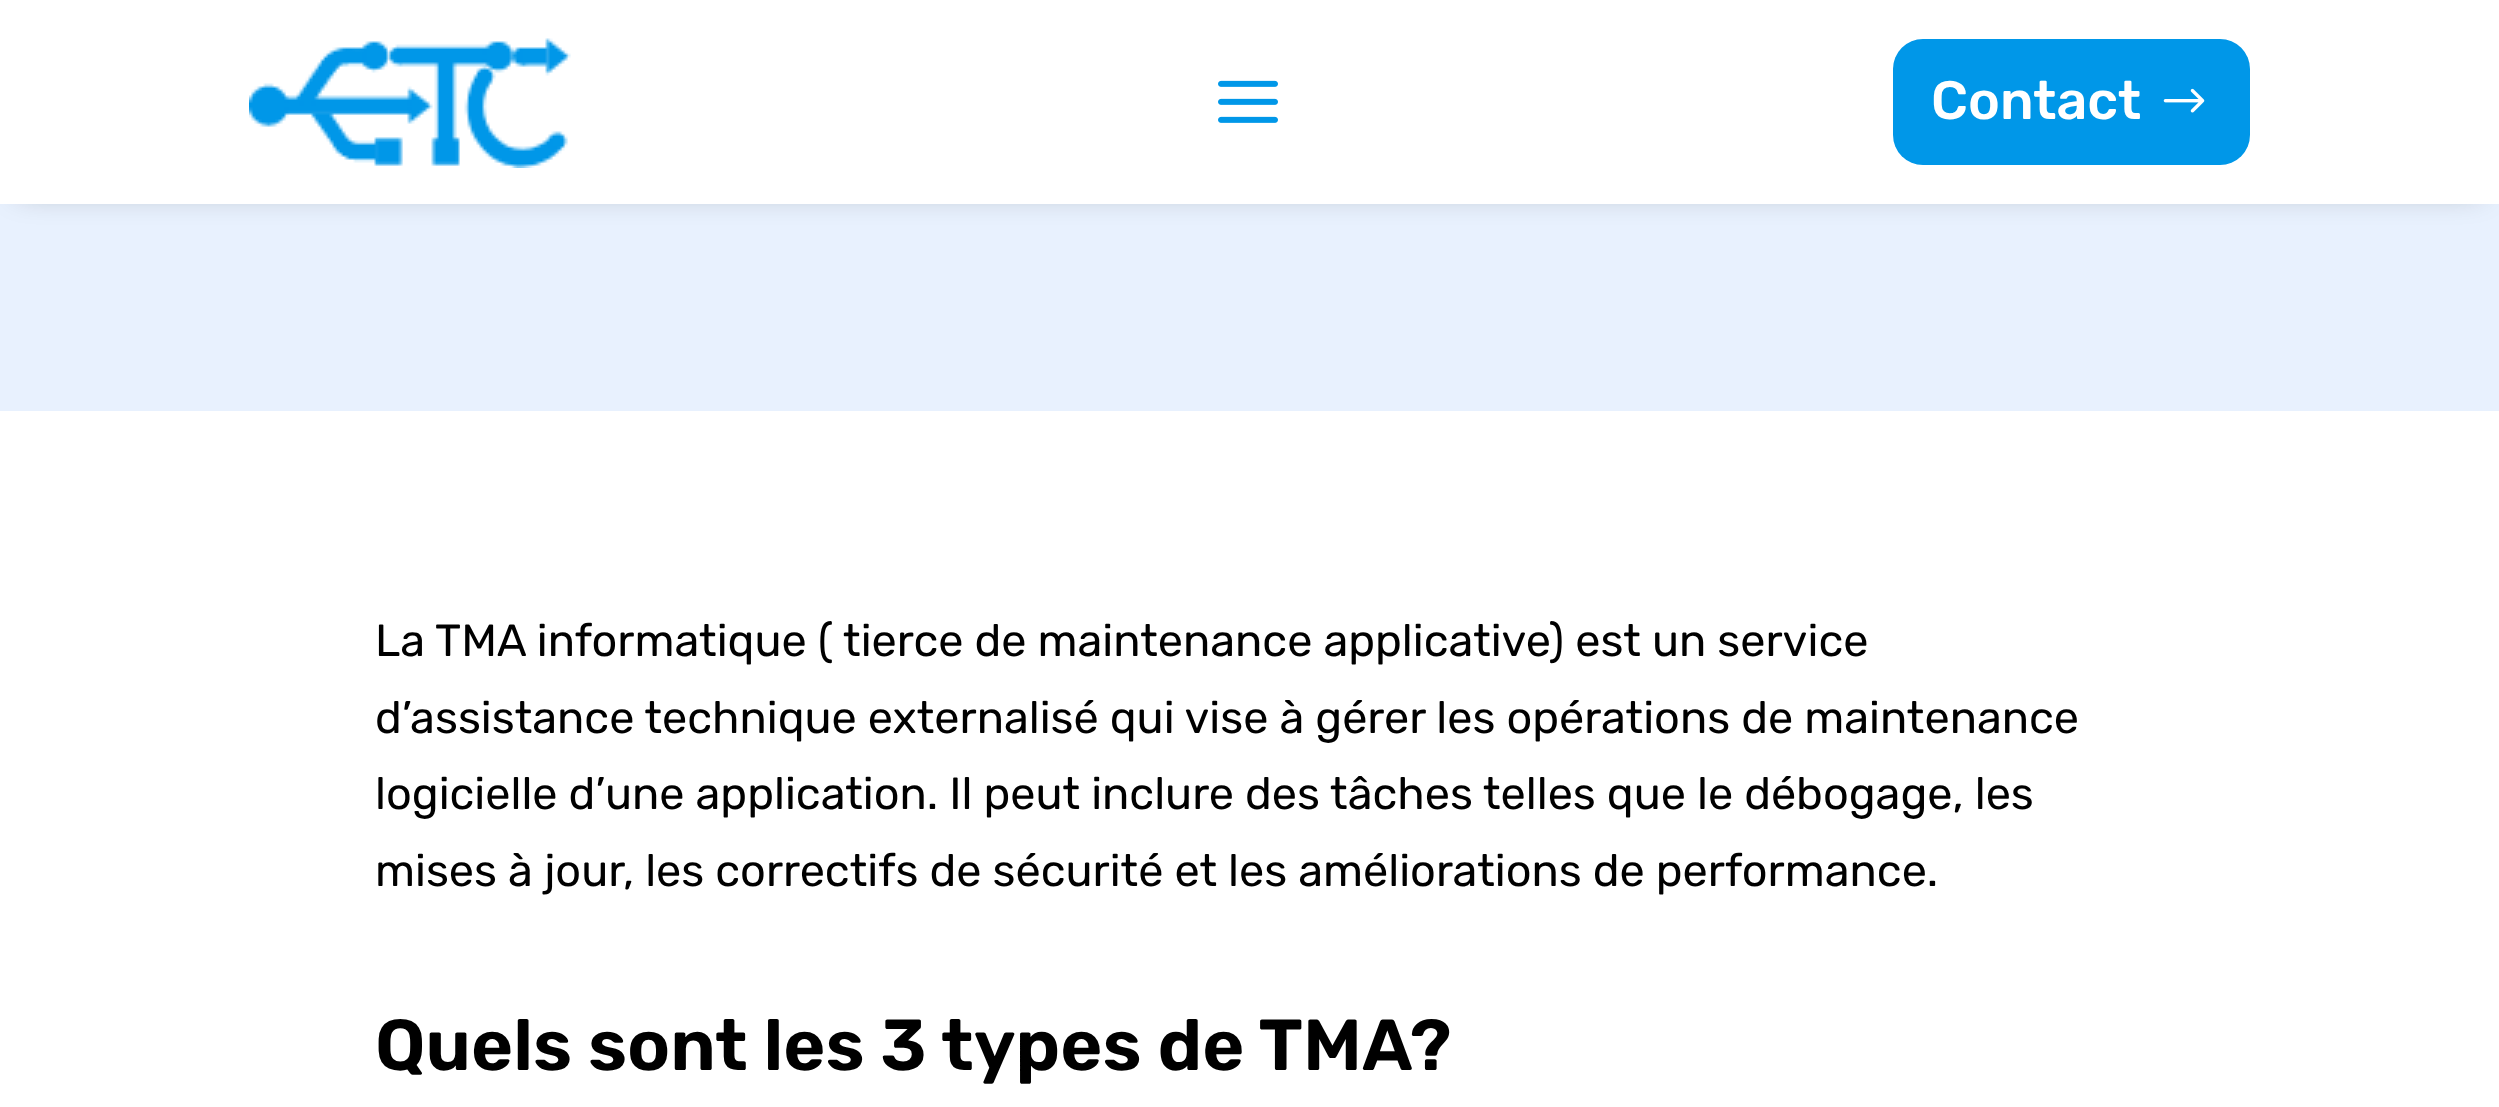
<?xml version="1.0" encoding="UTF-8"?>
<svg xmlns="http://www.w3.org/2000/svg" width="2499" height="1107">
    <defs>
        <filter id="blur1" x="-50%" y="-200%" width="200%" height="500%"><feGaussianBlur stdDeviation="15"/></filter>
    </defs>
    <rect width="100%" height="100%" fill="#FFFFFF"/>
    <rect x="0" y="204" width="2499" height="207" fill="#E8F1FE"/>
    <rect x="18" y="24" width="2463" height="168" fill="#000000" fill-opacity="0.3" filter="url(#blur1)"/>
    <rect x="0" y="0" width="2499" height="204" fill="#FFFFFF"/>
    <image x="249" y="38" width="322" height="130" href="img_01.png"/>
    <image x="1218" y="80" width="60" height="43" href="img_02.png"/>
    <rect x="1893" y="39" width="357" height="126" rx="30" fill="#0097E8"/>
    <text x="1931" y="119" font-family="Rubik" font-size="54" font-weight="500" fill="#FFFFFF">Contact</text>
    <image x="2163" y="88" width="42" height="25" href="img_03.png"/>
    <text font-family="Rubik" font-size="45" fill="#000000">
        <tspan x="375" y="656">La TMA informatique ( tierce de maintenance applicative) est un service</tspan>
        <tspan x="375" y="733">d’assistance technique externalisé qui vise à gérer les opérations de maintenance</tspan>
        <tspan x="375" y="809">logicielle d’une application. Il peut inclure des tâches telles que le débogage, les</tspan>
        <tspan x="375" y="886">mises à jour, les correctifs de sécurité et les améliorations de performance.</tspan>
    </text>
    <text x="375" y="1070" font-family="Rubik" font-size="72" font-weight="600" fill="#000000">Quels sont les 3 types de TMA?</text>
</svg>
